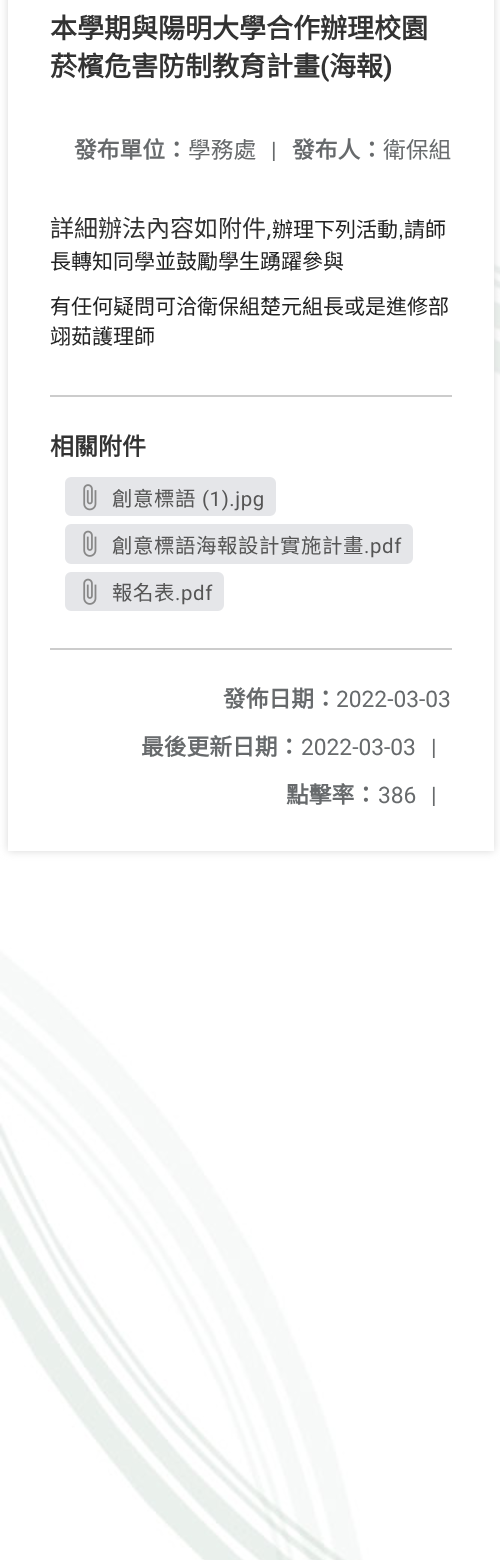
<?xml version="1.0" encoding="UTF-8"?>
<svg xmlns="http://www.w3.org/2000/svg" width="500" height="1560">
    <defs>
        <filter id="blur1" x="-50%" y="-200%" width="200%" height="500%"><feGaussianBlur stdDeviation="4"/></filter>
    </defs>
    <rect width="100%" height="100%" fill="#FFFFFF"/>
    <image x="0" y="0" width="500" height="1560" href="img_01.png"/>
    <rect x="8" y="-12" width="486" height="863" fill="#D8D8D8" filter="url(#blur1)"/>
    <rect x="8" y="0" width="486" height="851" fill="#FFFFFF"/>
    <text font-family="Noto Sans CJK TC" font-size="27" font-weight="700" fill="#333333">
        <tspan x="50" y="38">本學期與陽明大學合作辦理校園</tspan>
        <tspan x="50" y="76">菸檳危害防制教育計畫</tspan>
    </text>
    <text x="320" y="76" font-family="Roboto" font-size="27" font-weight="700" fill="#333333">(</text>
    <text x="329" y="76" font-family="Noto Sans CJK TC" font-size="27" font-weight="700" fill="#333333">海報</text>
    <text x="383" y="76" font-family="Roboto" font-size="27" font-weight="700" fill="#333333">)</text>
    <text x="74" y="158" font-family="Noto Sans CJK TC" font-size="22.75" font-weight="700" fill="#676A6C">發布單位：</text>
    <text x="188" y="158" font-family="Noto Sans CJK TC" font-size="22.75" fill="#676A6C">學務處</text>
    <text x="271" y="158" font-family="Roboto" font-size="22.75" fill="#676A6C">|</text>
    <text x="292" y="158" font-family="Noto Sans CJK TC" font-size="22.75" font-weight="700" fill="#676A6C">發布人：</text>
    <text x="383" y="158" font-family="Noto Sans CJK TC" font-size="22.75" fill="#676A6C">衛保組</text>
    <text x="50" y="237" font-family="Noto Sans CJK TC" font-size="24" fill="#333333">詳細辦法內容如附件</text>
    <text x="266" y="237" font-family="Open Sans" font-size="24" fill="#333333">,</text>
    <text x="272" y="237" font-family="Noto Sans CJK TC" font-size="21" fill="#222222">辦理下列活動</text>
    <text x="398" y="237" font-family="Liberation Sans" font-size="21" fill="#222222">,</text>
    <text x="404" y="237" font-family="Noto Sans CJK TC" font-size="21" fill="#222222">請師</text>
    <text x="50" y="269" font-family="Noto Sans CJK TC" font-size="21" fill="#222222">長轉知同學並鼓勵學生踴躍參與</text>
    <text font-family="Noto Sans CJK TC" font-size="21" fill="#222222">
        <tspan x="50" y="314">有任何疑問可洽衛保組楚元組長或是進修部</tspan>
        <tspan x="50" y="344">翊茹護理師</tspan>
    </text>
    <rect x="50" y="395" width="402" height="2" fill="#CCCCCC"/>
    <text x="50" y="455" font-family="Noto Sans CJK TC" font-size="24" font-weight="700" fill="#333333">相關附件</text>
    <rect x="66" y="478" width="209" height="37" rx="5" fill="#E5E6E9" stroke="#E5E6E9" stroke-width="2"/>
    <image x="83" y="484" width="14" height="27" href="img_02.png"/>
    <text x="112" y="506" font-family="Noto Sans CJK TC" font-size="20.4" letter-spacing="0.6" fill="#555555">創意標語</text>
    <text x="202" y="506" font-family="Roboto" font-size="20.4" letter-spacing="0.6" fill="#555555">(1).jpg</text>
    <rect x="66" y="525" width="346" height="38" rx="5" fill="#E5E6E9" stroke="#E5E6E9" stroke-width="2"/>
    <image x="83" y="530" width="14" height="27" href="img_03.png"/>
    <text x="112" y="553" font-family="Noto Sans CJK TC" font-size="20.4" letter-spacing="0.6" fill="#555555">創意標語海報設計實施計畫</text>
    <text x="364" y="553" font-family="Roboto" font-size="20.4" letter-spacing="0.6" fill="#555555">.pdf</text>
    <rect x="66" y="573" width="157" height="37" rx="5" fill="#E5E6E9" stroke="#E5E6E9" stroke-width="2"/>
    <image x="83" y="578" width="14" height="27" href="img_03.png"/>
    <text x="112" y="600" font-family="Noto Sans CJK TC" font-size="20.4" letter-spacing="0.6" fill="#555555">報名表</text>
    <text x="175" y="600" font-family="Roboto" font-size="20.4" letter-spacing="0.6" fill="#555555">.pdf</text>
    <rect x="50" y="648" width="402" height="2" fill="#CCCCCC"/>
    <text x="223" y="707" font-family="Noto Sans CJK TC" font-size="22.75" font-weight="700" fill="#676A6C">發佈日期：</text>
    <text x="336" y="707" font-family="Roboto" font-size="22.75" fill="#676A6C">2022-03-03</text>
    <text x="141" y="755" font-family="Noto Sans CJK TC" font-size="22.75" font-weight="700" fill="#676A6C">最後更新日期：</text>
    <text x="301" y="755" font-family="Roboto" font-size="22.75" fill="#676A6C">2022-03-03</text>
    <text x="431" y="755" font-family="Roboto" font-size="22.75" fill="#676A6C">|</text>
    <text x="286" y="803" font-family="Noto Sans CJK TC" font-size="22.75" font-weight="700" fill="#676A6C">點擊率：</text>
    <text x="378" y="803" font-family="Roboto" font-size="22.75" fill="#676A6C">386</text>
    <text x="431" y="803" font-family="Roboto" font-size="22.75" fill="#676A6C">|</text>
</svg>
